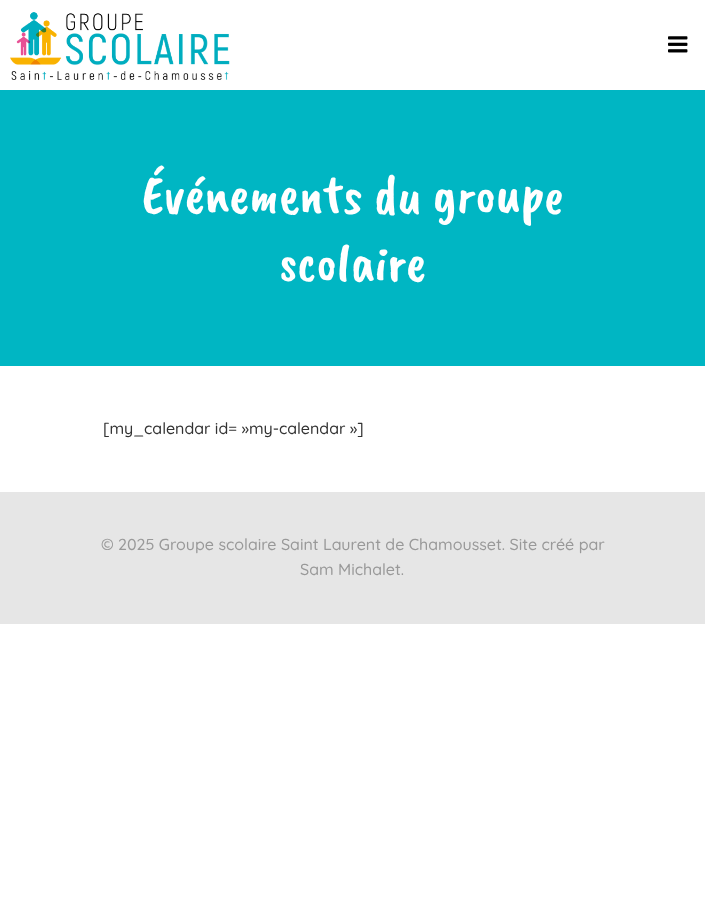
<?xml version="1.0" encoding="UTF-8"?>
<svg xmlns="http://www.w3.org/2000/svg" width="705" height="917">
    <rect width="100%" height="100%" fill="#FFFFFF"/>
    <image x="10" y="12" width="220" height="68" href="img_01.png"/>
    <image x="668" y="36" width="20" height="17" href="img_02.png"/>
    <rect x="0" y="90" width="705" height="276" fill="#00B6C3"/>
    <text x="142" y="212" font-family="Caveat Brush" font-size="54" fill="#FFFFFF">Événements du groupe</text>
    <text x="279" y="280" font-family="Caveat Brush" font-size="54" fill="#FFFFFF">scolaire</text>
    <text x="103" y="434" font-family="Quicksand" font-size="16" font-weight="500" fill="#333333">[my_calendar id= »my-calendar »]</text>
    <rect x="0" y="492" width="705" height="132" fill="#E6E6E6"/>
    <text x="101" y="550" font-family="Quicksand" font-size="16" font-weight="500" fill="#999999">© 2025 Groupe scolaire Saint Laurent de Chamousset. Site créé par</text>
    <text x="300" y="575" font-family="Quicksand" font-size="16" font-weight="500" fill="#999999">Sam Michalet.</text>
</svg>
